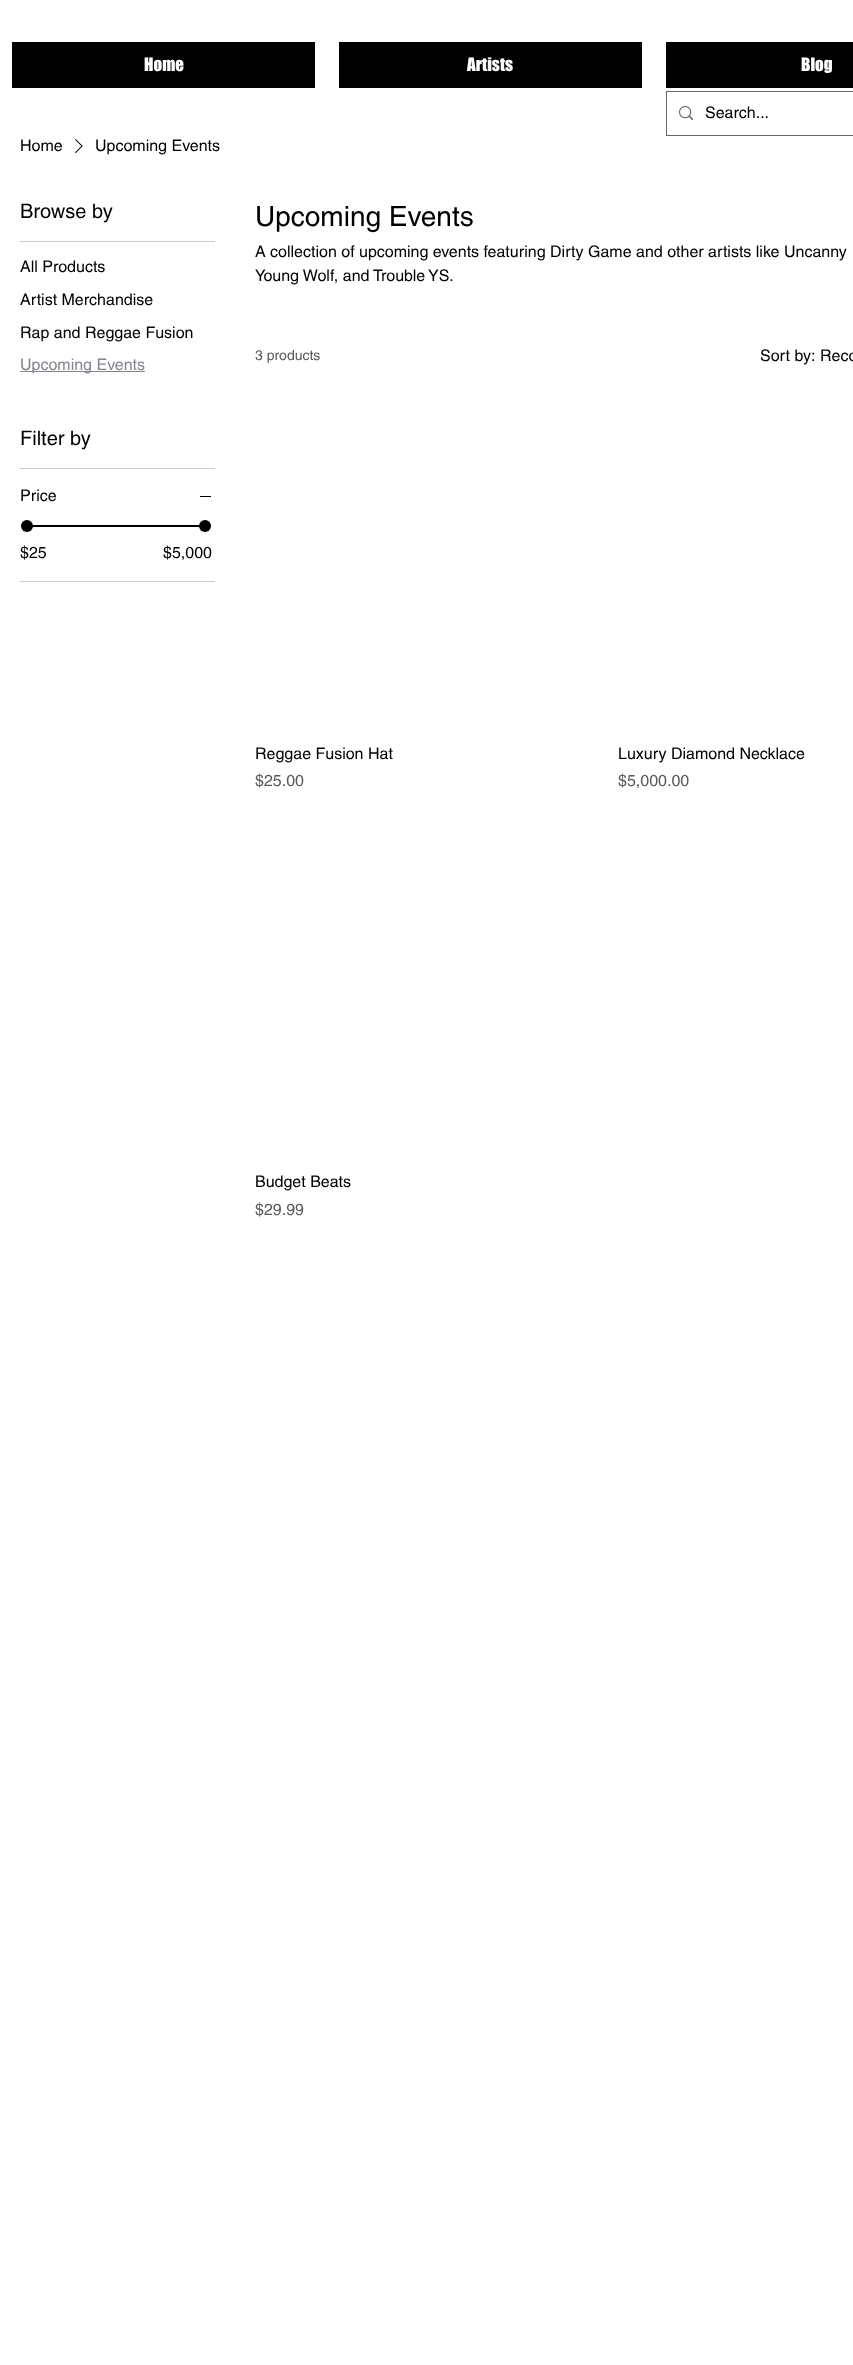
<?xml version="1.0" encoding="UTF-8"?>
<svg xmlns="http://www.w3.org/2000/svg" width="853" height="2365">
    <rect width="100%" height="100%" fill="#FFFFFF"/>
    <rect x="12" y="42" width="303" height="46" fill="#000000"/>
    <text x="144" y="71" font-family="'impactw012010'" font-size="17" fill="#FFFFFF">Home</text>
    <rect x="339" y="42" width="303" height="46" fill="#000000"/>
    <text x="467" y="71" font-family="'impactw012010'" font-size="17" fill="#FFFFFF">Artists</text>
    <rect x="666" y="42" width="187" height="46" fill="#000000"/>
    <text x="801" y="71" font-family="'impactw012010'" font-size="17" fill="#FFFFFF">Blog</text>
    <rect x="666.5" y="91.5" width="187" height="44" fill="none" stroke="#666666"/>
    <image x="679" y="106" width="14" height="14" href="img_01.png"/>
    <text x="705" y="118" font-family="helvetica" font-size="16" fill="#000000">Search...</text>
    <text x="20" y="151" font-family="helvetica" font-size="16" fill="#000000">Home</text>
    <image x="75" y="139" width="8" height="14" href="img_02.png"/>
    <text x="95" y="151" font-family="helvetica" font-size="16" fill="#000000">Upcoming Events</text>
    <rect x="20" y="241" width="195" height="1" fill="#CCCCCC"/>
    <text x="20" y="218" font-family="helvetica" font-size="20" fill="#000000">Browse by</text>
    <text x="20" y="272" font-family="helvetica" font-size="16" fill="#000000">All Products</text>
    <text x="20" y="305" font-family="helvetica" font-size="16" fill="#000000">Artist Merchandise</text>
    <text x="20" y="338" font-family="helvetica" font-size="16" fill="#000000">Rap and Reggae Fusion</text>
    <rect x="20" y="371" width="125" height="1" fill="#82858B"/>
    <text x="20" y="370" font-family="helvetica" font-size="16" fill="#82858B">Upcoming Events</text>
    <rect x="20" y="468" width="195" height="1" fill="#CCCCCC"/>
    <text x="20" y="445" font-family="helvetica" font-size="20" fill="#000000">Filter by</text>
    <rect x="20" y="581" width="195" height="1" fill="#CCCCCC"/>
    <text x="20" y="501" font-family="helvetica" font-size="16" fill="#000000">Price</text>
    <rect x="200" y="496" width="11" height="1" fill="#000000"/>
    <rect x="26" y="525" width="178" height="2" fill="#000000"/>
    <circle cx="27" cy="526" r="6" fill="#000000"/>
    <circle cx="205" cy="526" r="6" fill="#000000"/>
    <text x="20" y="558" font-family="helvetica" font-size="16" fill="#000000">$25</text>
    <text x="163" y="558" font-family="helvetica" font-size="16" fill="#000000">$5,000</text>
    <text x="255" y="226" font-family="helvetica" font-size="28" fill="#000000">Upcoming Events</text>
    <text font-family="helvetica" font-size="16" fill="#000000">
        <tspan x="255" y="257">A collection of upcoming events featuring Dirty Game and other artists like Uncanny</tspan>
        <tspan x="255" y="281">Young Wolf, and Trouble YS.</tspan>
    </text>
    <text x="255" y="360" font-family="helvetica" font-size="14" fill="#595959">3 products</text>
    <text x="760" y="361" font-family="helvetica" font-size="16" fill="#000000">Sort by:</text>
    <text x="820" y="361" font-family="helvetica" font-size="16" fill="#000000">Reco</text>
    <text x="255" y="759" font-family="helvetica" font-size="16" fill="#000000">Reggae Fusion Hat</text>
    <text x="255" y="786" font-family="helvetica" font-size="16" fill="#595959">$25.00</text>
    <text x="618" y="759" font-family="helvetica" font-size="16" fill="#000000">Luxury Diamond Necklace</text>
    <text x="618" y="786" font-family="helvetica" font-size="16" fill="#595959">$5,000.00</text>
    <text x="255" y="1187" font-family="helvetica" font-size="16" fill="#000000">Budget Beats</text>
    <text x="255" y="1215" font-family="helvetica" font-size="16" fill="#595959">$29.99</text>
</svg>
